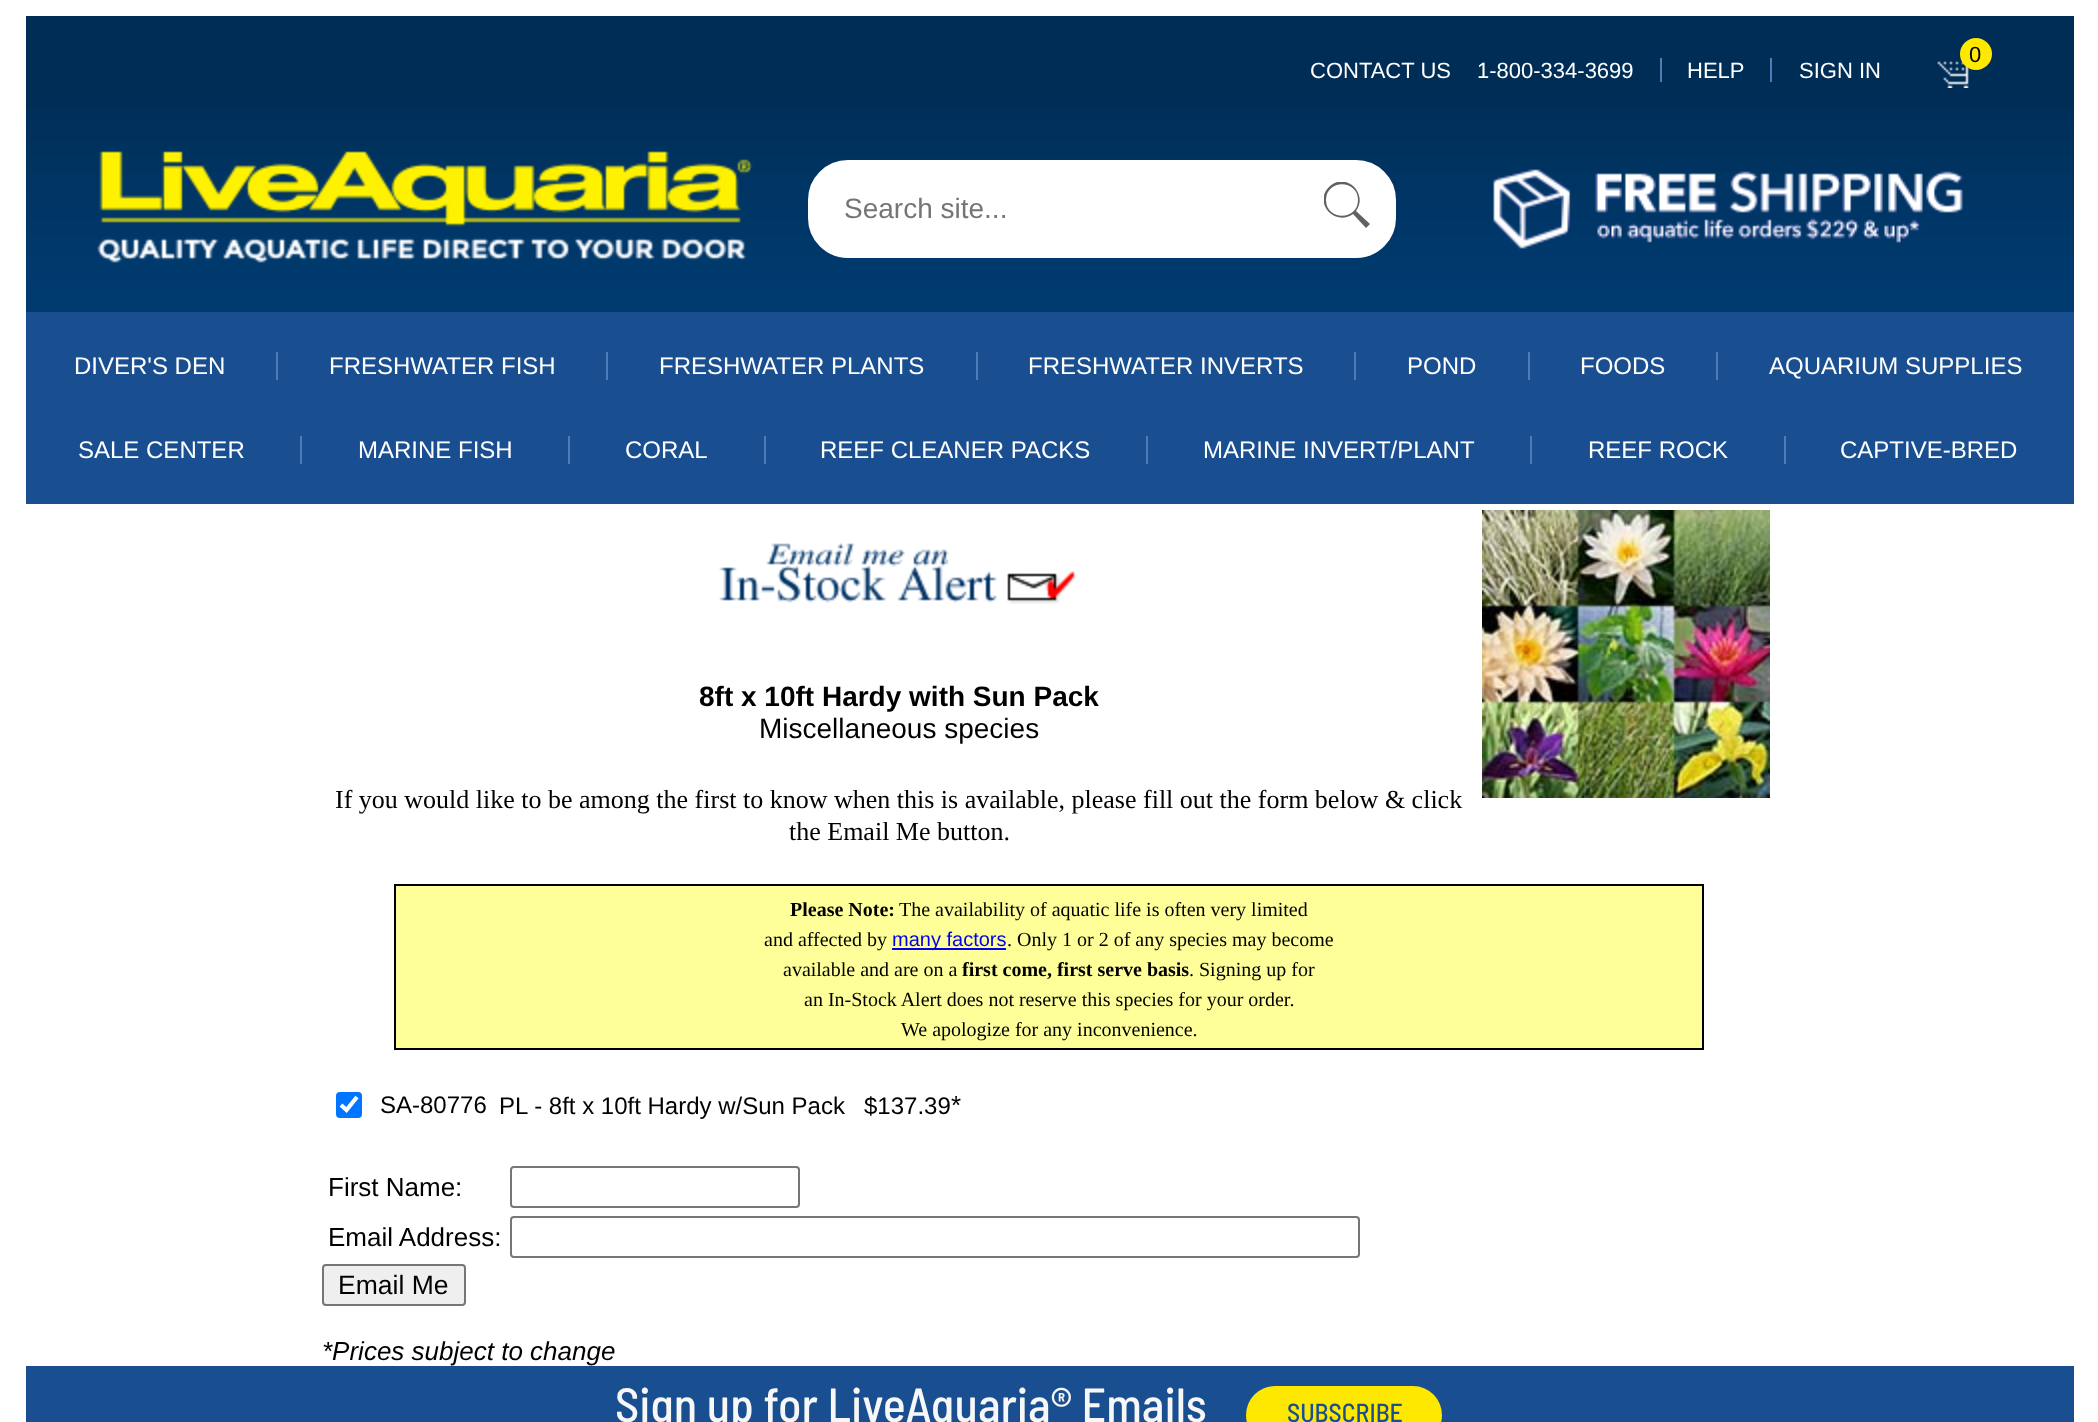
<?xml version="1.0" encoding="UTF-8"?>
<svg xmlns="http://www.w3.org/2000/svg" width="2098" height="1422">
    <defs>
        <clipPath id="clip1"><rect x="1324" y="182" width="46" height="46"/></clipPath>
    </defs>
    <rect width="100%" height="100%" fill="#FFFFFF"/>
    <rect x="26" y="16" width="2048" height="94" fill="#002D55"/>
    <image x="26" y="110" width="2048" height="202" href="img_01.png"/>
    <image x="1937" y="61" width="32" height="27" href="img_02.png"/>
    <circle cx="1976" cy="54" r="16" fill="#FFE900"/>
    <text x="1969" y="62" font-family="Liberation Sans" font-size="22" fill="#000000">0</text>
    <text x="1310" y="78" font-family="Liberation Sans" font-size="22" fill="#FFFFFF">CONTACT US</text>
    <text x="1477" y="78" font-family="Liberation Sans" font-size="22" fill="#FFFFFF">1-800-334-3699</text>
    <rect x="1660" y="58" width="2" height="24" fill="#4C7DB9"/>
    <text x="1687" y="78" font-family="Liberation Sans" font-size="22" fill="#FFFFFF">HELP</text>
    <rect x="1770" y="58" width="2" height="24" fill="#4C7DB9"/>
    <text x="1799" y="78" font-family="Liberation Sans" font-size="22" fill="#FFFFFF">SIGN IN</text>
    <image x="97" y="151" width="656" height="112" href="img_03.png"/>
    <rect x="809" y="161" width="586" height="96" rx="39" fill="#FFFFFF" stroke="#FFFFFF" stroke-width="2"/>
    <text x="844" y="218" font-family="Liberation Sans" font-size="28" fill="#757575">Search site...</text>
    <g clip-path="url(#clip1)">
        <path d="M 1370 224 L 1356 211 C 1369 193 1345 171 1329 187 C 1313 203 1335 227 1353 214 L 1366 228 Z M 1326 200 C 1326 179 1358 179 1358 200 C 1358 221 1326 221 1326 200 Z" fill="#616161"/>
    </g>
    <image x="1493" y="169" width="470" height="80" href="img_04.png"/>
    <rect x="26" y="312" width="2048" height="192" fill="#194F91"/>
    <text x="74" y="374" font-family="Liberation Sans" font-size="24" fill="#FFFFFF">DIVER'S DEN</text>
    <rect x="276" y="352" width="2" height="28" fill="#4C7DB9"/>
    <text x="329" y="374" font-family="Liberation Sans" font-size="24" fill="#FFFFFF">FRESHWATER FISH</text>
    <rect x="606" y="352" width="2" height="28" fill="#4C7DB9"/>
    <text x="659" y="374" font-family="Liberation Sans" font-size="24" fill="#FFFFFF">FRESHWATER PLANTS</text>
    <rect x="976" y="352" width="2" height="28" fill="#4C7DB9"/>
    <text x="1028" y="374" font-family="Liberation Sans" font-size="24" fill="#FFFFFF">FRESHWATER INVERTS</text>
    <rect x="1354" y="352" width="2" height="28" fill="#4C7DB9"/>
    <text x="1407" y="374" font-family="Liberation Sans" font-size="24" fill="#FFFFFF">POND</text>
    <rect x="1528" y="352" width="2" height="28" fill="#4C7DB9"/>
    <text x="1580" y="374" font-family="Liberation Sans" font-size="24" fill="#FFFFFF">FOODS</text>
    <rect x="1716" y="352" width="2" height="28" fill="#4C7DB9"/>
    <text x="1769" y="374" font-family="Liberation Sans" font-size="24" fill="#FFFFFF">AQUARIUM SUPPLIES</text>
    <text x="78" y="458" font-family="Liberation Sans" font-size="24" fill="#FFFFFF">SALE CENTER</text>
    <rect x="300" y="436" width="2" height="28" fill="#4C7DB9"/>
    <text x="358" y="458" font-family="Liberation Sans" font-size="24" fill="#FFFFFF">MARINE FISH</text>
    <rect x="568" y="436" width="2" height="28" fill="#4C7DB9"/>
    <text x="625" y="458" font-family="Liberation Sans" font-size="24" fill="#FFFFFF">CORAL</text>
    <rect x="764" y="436" width="2" height="28" fill="#4C7DB9"/>
    <text x="820" y="458" font-family="Liberation Sans" font-size="24" fill="#FFFFFF">REEF CLEANER PACKS</text>
    <rect x="1146" y="436" width="2" height="28" fill="#4C7DB9"/>
    <text x="1203" y="458" font-family="Liberation Sans" font-size="24" fill="#FFFFFF">MARINE INVERT/PLANT</text>
    <rect x="1530" y="436" width="2" height="28" fill="#4C7DB9"/>
    <text x="1588" y="458" font-family="Liberation Sans" font-size="24" fill="#FFFFFF">REEF ROCK</text>
    <rect x="1784" y="436" width="2" height="28" fill="#4C7DB9"/>
    <text x="1840" y="458" font-family="Liberation Sans" font-size="24" fill="#FFFFFF">CAPTIVE-BRED</text>
    <image x="719" y="543" width="356" height="61" href="img_05.png"/>
    <text x="699" y="706" font-family="Liberation Sans" font-size="28" font-weight="700" fill="#000000">8ft x 10ft Hardy with Sun Pack</text>
    <text x="759" y="738" font-family="Liberation Sans" font-size="28" fill="#000000">Miscellaneous species</text>
    <text x="335" y="808" font-family="Liberation Serif" font-size="26" fill="#000000">If you would like to be among the first to know when this is available, please fill out the form below &amp; click</text>
    <text x="789" y="840" font-family="Liberation Serif" font-size="26" fill="#000000">the Email Me button.</text>
    <image x="1482" y="510" width="288" height="288" href="img_06.png"/>
    <rect x="394" y="884" width="1310" height="166" fill="#000000"/>
    <rect x="396" y="886" width="1306" height="162" fill="#FFFF99"/>
    <text x="790" y="916" font-family="Liberation Serif" font-size="20" font-weight="700" fill="#000000">Please Note:</text>
    <text x="899" y="916" font-family="Liberation Serif" font-size="20" fill="#000000">The availability of aquatic life is often very limited</text>
    <text x="764" y="946" font-family="Liberation Serif" font-size="20" fill="#000000">and affected by</text>
    <rect x="892" y="948" width="114" height="2" fill="#0000EE"/>
    <text x="892" y="946" font-family="Liberation Sans" font-size="20" fill="#0000EE">many factors</text>
    <text x="1007" y="946" font-family="Liberation Serif" font-size="20" fill="#000000">. Only 1 or 2 of any species may become</text>
    <text x="783" y="976" font-family="Liberation Serif" font-size="20" fill="#000000">available and are on a</text>
    <text x="962" y="976" font-family="Liberation Serif" font-size="20" font-weight="700" fill="#000000">first come, first serve basis</text>
    <text x="1189" y="976" font-family="Liberation Serif" font-size="20" fill="#000000">. Signing up for</text>
    <text x="804" y="1006" font-family="Liberation Serif" font-size="20" fill="#000000">an In-Stock Alert does not reserve this species for your order.</text>
    <text x="901" y="1036" font-family="Liberation Serif" font-size="20" fill="#000000">We apologize for any inconvenience.</text>
    <rect x="336" y="1092" width="26" height="26" rx="4" fill="#0075FF"/>
    <path d="M 341 1105 L 346.5 1110 L 357 1097" fill="none" stroke="#FFFFFF" stroke-width="4.2"/>
    <text x="380" y="1113" font-family="Liberation Sans" font-size="24" fill="#000000">SA-80776</text>
    <text x="499" y="1114" font-family="Liberation Sans" font-size="24" fill="#000000">PL - 8ft x 10ft Hardy w/Sun Pack</text>
    <text x="864" y="1114" font-family="Liberation Sans" font-size="24" fill="#000000">$137.39</text>
    <text x="951" y="1114" font-family="Liberation Sans" font-size="26" fill="#000000">*</text>
    <text x="328" y="1196" font-family="Liberation Sans" font-size="26" fill="#000000">First Name:</text>
    <rect x="511" y="1167" width="288" height="40" rx="3" fill="none" stroke="#767676" stroke-width="2"/>
    <text x="328" y="1246" font-family="Liberation Sans" font-size="26" fill="#000000">Email Address:</text>
    <rect x="511" y="1217" width="848" height="40" rx="3" fill="none" stroke="#767676" stroke-width="2"/>
    <rect x="323" y="1265" width="142" height="40" rx="3" fill="#EFEFEF" stroke="#767676" stroke-width="2"/>
    <text x="338" y="1294" font-family="Liberation Sans" font-size="26.5" fill="#000000">Email Me</text>
    <text x="322" y="1360" font-family="Liberation Sans" font-size="26" font-style="italic" fill="#000000">*Prices subject to change</text>
    <rect x="26" y="1366" width="2048" height="56" fill="#194F90"/>
    <text x="615" y="1422" font-family="Barlow Semi Condensed" font-size="48" font-weight="500" fill="#F7F7F7">Sign up for LiveAquaria® Emails</text>
    <rect x="1246" y="1386" width="196" height="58" rx="29" fill="#FFE800"/>
    <text x="1287" y="1422" font-family="Barlow Semi Condensed" font-size="26" font-weight="500" fill="#194F90">SUBSCRIBE</text>
</svg>
